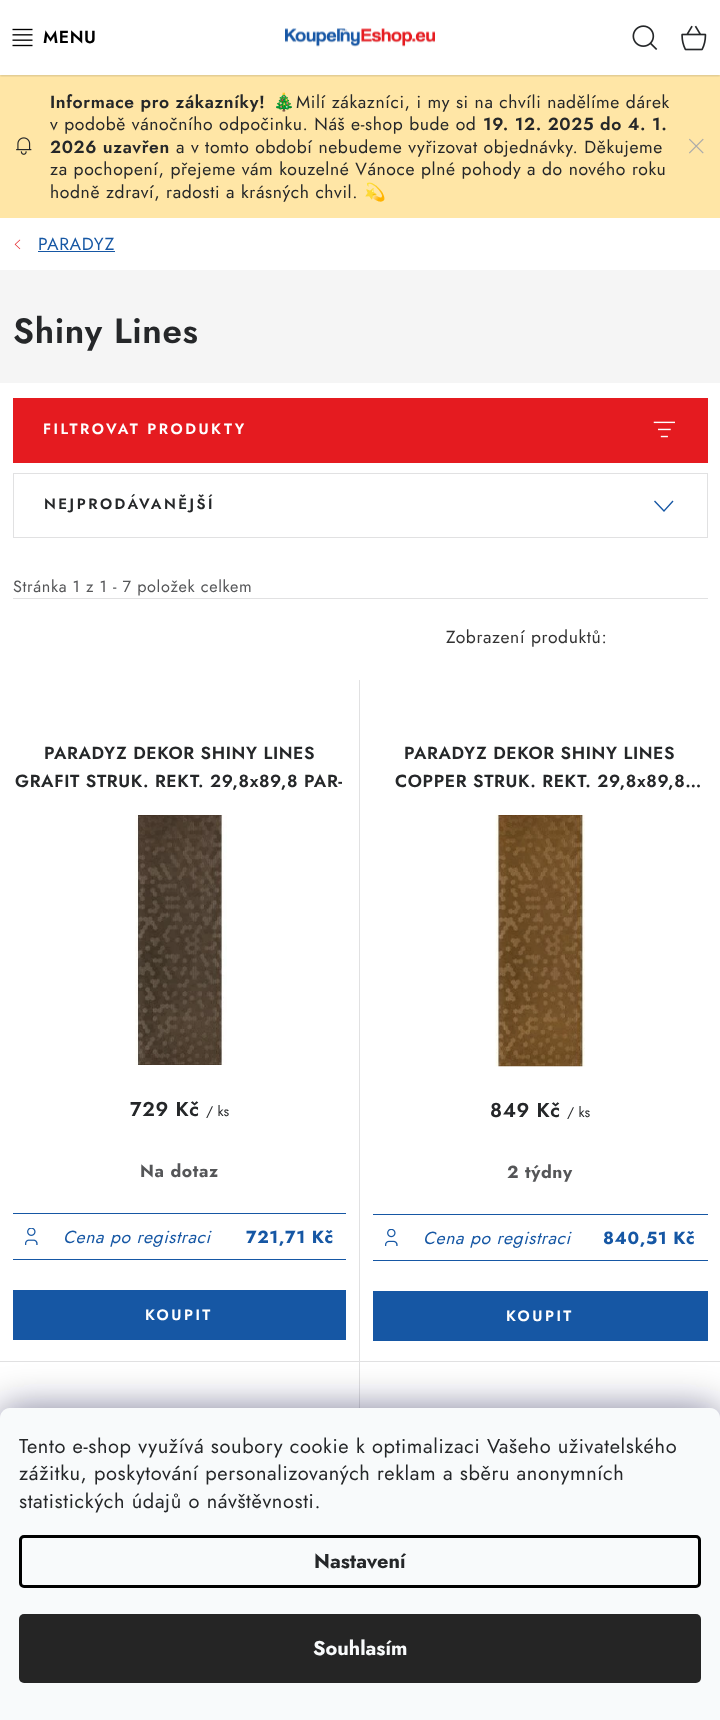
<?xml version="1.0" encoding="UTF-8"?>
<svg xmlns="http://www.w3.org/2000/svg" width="720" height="1720">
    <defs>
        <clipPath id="clip1"><rect x="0" y="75" width="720" height="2"/></clipPath>
        <filter id="blur1" x="-50%" y="-200%" width="200%" height="500%"><feGaussianBlur stdDeviation="1"/></filter>
        <filter id="blur2" x="-50%" y="-200%" width="200%" height="500%"><feGaussianBlur stdDeviation="19"/></filter>
    </defs>
    <rect width="100%" height="100%" fill="#FFFFFF"/>
    <rect x="0" y="75" width="720" height="143" fill="#FFE6A6"/>
    <g clip-path="url(#clip1)">
        <rect x="0" y="1" width="720" height="75" fill="#000000" fill-opacity="0.16" filter="url(#blur1)"/>
    </g>
    <image x="12" y="28" width="21" height="19" href="img_01.png"/>
    <text x="43" y="43" font-family="Jost" font-size="17.5" font-weight="600" letter-spacing="0.62" fill="#000000">MENU</text>
    <image x="632" y="25" width="26" height="25" href="img_02.png"/>
    <image x="681" y="25" width="26" height="26" href="img_03.png"/>
    <image x="285" y="28" width="150" height="19" href="img_04.png"/>
    <text x="50" y="108" font-family="Jost" font-size="17.5" font-weight="600" letter-spacing="0.62" fill="#252729">Informace pro zákazníky!</text>
    <text x="273" y="108" font-family="Noto Color Emoji" font-size="17.5" letter-spacing="0.62" fill="#252729">🎄</text>
    <text x="296" y="108" font-family="Jost" font-size="17.5" letter-spacing="0.62" fill="#252729">Milí zákazníci, i my si na chvíli nadělíme dárek</text>
    <text x="50" y="130" font-family="Jost" font-size="17.5" letter-spacing="0.62" fill="#252729">v podobě vánočního odpočinku. Náš e-shop bude od</text>
    <text x="483" y="130" font-family="Jost" font-size="17.5" font-weight="600" letter-spacing="0.62" fill="#252729">19. 12. 2025 do 4. 1.</text>
    <image x="16" y="137" width="16" height="18" href="img_05.png"/>
    <text x="50" y="153" font-family="Jost" font-size="17.5" font-weight="600" letter-spacing="0.62" fill="#252729">2026 uzavřen</text>
    <text x="176" y="153" font-family="Jost" font-size="17.5" letter-spacing="0.62" fill="#252729">a v tomto období nebudeme vyřizovat objednávky. Děkujeme</text>
    <text font-family="Jost" font-size="17.5" letter-spacing="0.62" fill="#252729">
        <tspan x="50" y="175">za pochopení, přejeme vám kouzelné Vánoce plné pohody a do nového roku</tspan>
        <tspan x="50" y="198">hodně zdraví, radosti a krásných chvil.</tspan>
    </text>
    <text x="364" y="198" font-family="Noto Color Emoji" font-size="17.5" letter-spacing="0.62" fill="#252729">💫</text>
    <image x="689" y="138" width="15" height="16" href="img_06.png"/>
    <image x="14" y="239" width="7" height="11" href="img_07.png"/>
    <text x="38" y="250" font-family="Jost" font-size="17.5" letter-spacing="0.62" fill="#1657A4">PARADYZ</text>
    <rect x="38" y="251" width="77" height="1" fill="#1657A4"/>
    <rect x="0" y="270" width="720" height="113" fill="#F5F5F5"/>
    <text x="13" y="343" font-family="Jost" font-size="35" font-weight="600" letter-spacing="0.62" fill="#252729">Shiny Lines</text>
    <rect x="13" y="398" width="695" height="65" fill="#E51B20"/>
    <text x="43" y="434" font-family="Jost" font-size="15" font-weight="600" letter-spacing="2.5" fill="#FFFFFF">FILTROVAT PRODUKTY</text>
    <image x="653" y="421" width="22" height="17" href="img_08.png"/>
    <rect x="13" y="598" width="695" height="1" fill="#E1E1E2"/>
    <rect x="13.5" y="473.5" width="694" height="64" fill="none" stroke="#E1E1E2"/>
    <text x="44" y="509" font-family="Jost" font-size="15" font-weight="600" letter-spacing="2.5" fill="#252729">NEJPRODÁVANĚJŠÍ</text>
    <path d="M 655 500.5 L 664 510 L 672.5 500.5 L 673.5 501.5 L 664 512 L 654 501.5 Z" fill="#1657A4"/>
    <text x="13" y="592" font-family="Jost" font-size="16.25" letter-spacing="0.62" fill="#555658">Stránka 1 z 1 - 7 položek celkem</text>
    <text x="446" y="643" font-family="Jost" font-size="17.5" letter-spacing="0.62" fill="#333333">Zobrazení produktů:</text>
    <rect x="359" y="680" width="1" height="728" fill="#E1E1E2"/>
    <rect x="0" y="1361" width="720" height="1" fill="#E1E1E2"/>
    <text x="44" y="759" font-family="Jost" font-size="17.5" font-weight="600" letter-spacing="0.62" fill="#252729">PARADYZ DEKOR SHINY LINES</text>
    <text x="15" y="787" font-family="Jost" font-size="17.5" font-weight="600" letter-spacing="0.62" fill="#252729">GRAFIT STRUK. REKT. 29,8x89,8 PAR-</text>
    <image x="135" y="815" width="92" height="250" href="img_09.png"/>
    <text x="130" y="1116" font-family="Jost" font-size="20" font-weight="600" letter-spacing="0.62" fill="#252729">729 Kč</text>
    <text x="206" y="1116" font-family="Jost" font-size="14" fill="#252729">/ ks</text>
    <text x="140" y="1177" font-family="Jost" font-size="17.5" font-weight="700" letter-spacing="0.62" fill="#555658">Na dotaz</text>
    <rect x="13" y="1213" width="333" height="1" fill="#1657A4"/>
    <rect x="13" y="1259" width="333" height="1" fill="#1657A4"/>
    <image x="25" y="1228" width="13" height="17" href="img_10.png"/>
    <text x="63" y="1243" font-family="Jost" font-size="17.5" font-style="italic" letter-spacing="0.62" fill="#1657A4">Cena po registraci</text>
    <text x="246" y="1243" font-family="Jost" font-size="17.5" font-weight="700" letter-spacing="0.62" fill="#1657A4">721,71 Kč</text>
    <rect x="13" y="1290" width="333" height="50" fill="#1657A4"/>
    <text x="145" y="1320" font-family="Jost" font-size="15" font-weight="600" letter-spacing="2.5" fill="#FFFFFF">KOUPIT</text>
    <text x="404" y="759" font-family="Jost" font-size="17.5" font-weight="600" letter-spacing="0.62" fill="#252729">PARADYZ DEKOR SHINY LINES</text>
    <text x="395" y="787" font-family="Jost" font-size="17.5" font-weight="600" letter-spacing="0.62" fill="#252729">COPPER STRUK. REKT. 29,8x89,8…</text>
    <image x="495" y="815" width="90" height="252" href="img_11.png"/>
    <text x="490" y="1117" font-family="Jost" font-size="20" font-weight="600" letter-spacing="0.62" fill="#252729">849 Kč</text>
    <text x="567" y="1117" font-family="Jost" font-size="14" fill="#252729">/ ks</text>
    <text x="507" y="1178" font-family="Jost" font-size="17.5" font-weight="700" letter-spacing="0.62" fill="#555658">2 týdny</text>
    <rect x="373" y="1214" width="335" height="1" fill="#1657A4"/>
    <rect x="373" y="1260" width="335" height="1" fill="#1657A4"/>
    <image x="385" y="1229" width="13" height="17" href="img_12.png"/>
    <text x="423" y="1244" font-family="Jost" font-size="17.5" font-style="italic" letter-spacing="0.62" fill="#1657A4">Cena po registraci</text>
    <text x="603" y="1244" font-family="Jost" font-size="17.5" font-weight="700" letter-spacing="0.62" fill="#1657A4">840,51 Kč</text>
    <rect x="373" y="1291" width="335" height="50" fill="#1657A4"/>
    <text x="506" y="1321" font-family="Jost" font-size="15" font-weight="600" letter-spacing="2.5" fill="#FFFFFF">KOUPIT</text>
    <rect x="0" y="1408" width="720" height="312" rx="10" fill="#1B1939" fill-opacity="0.5" filter="url(#blur2)"/>
    <path d="M 10 1408 H 710 C 715.5 1408 720 1412.5 720 1418 V 1720 H 0 V 1418 C 0 1412.5 4.5 1408 10 1408 Z" fill="#F8FAFB"/>
    <text font-family="Jost" font-size="20" letter-spacing="0.62" fill="#252729">
        <tspan x="19" y="1453">Tento e-shop využívá soubory cookie k optimalizaci Vašeho uživatelského</tspan>
        <tspan x="19" y="1480">zážitku, poskytování personalizovaných reklam a sběru anonymních</tspan>
        <tspan x="19" y="1508">statistických údajů o návštěvnosti.</tspan>
    </text>
    <rect x="20.5" y="1536.5" width="679" height="50" rx="3.5" fill="none" stroke="#000000" stroke-width="3"/>
    <text x="314" y="1568" font-family="Jost" font-size="20" font-weight="700" fill="#252729">Nastavení</text>
    <rect x="19" y="1614" width="682" height="69" rx="5" fill="#252525"/>
    <text x="313" y="1655" font-family="Jost" font-size="20" font-weight="700" fill="#F8FAFB">Souhlasím</text>
</svg>
